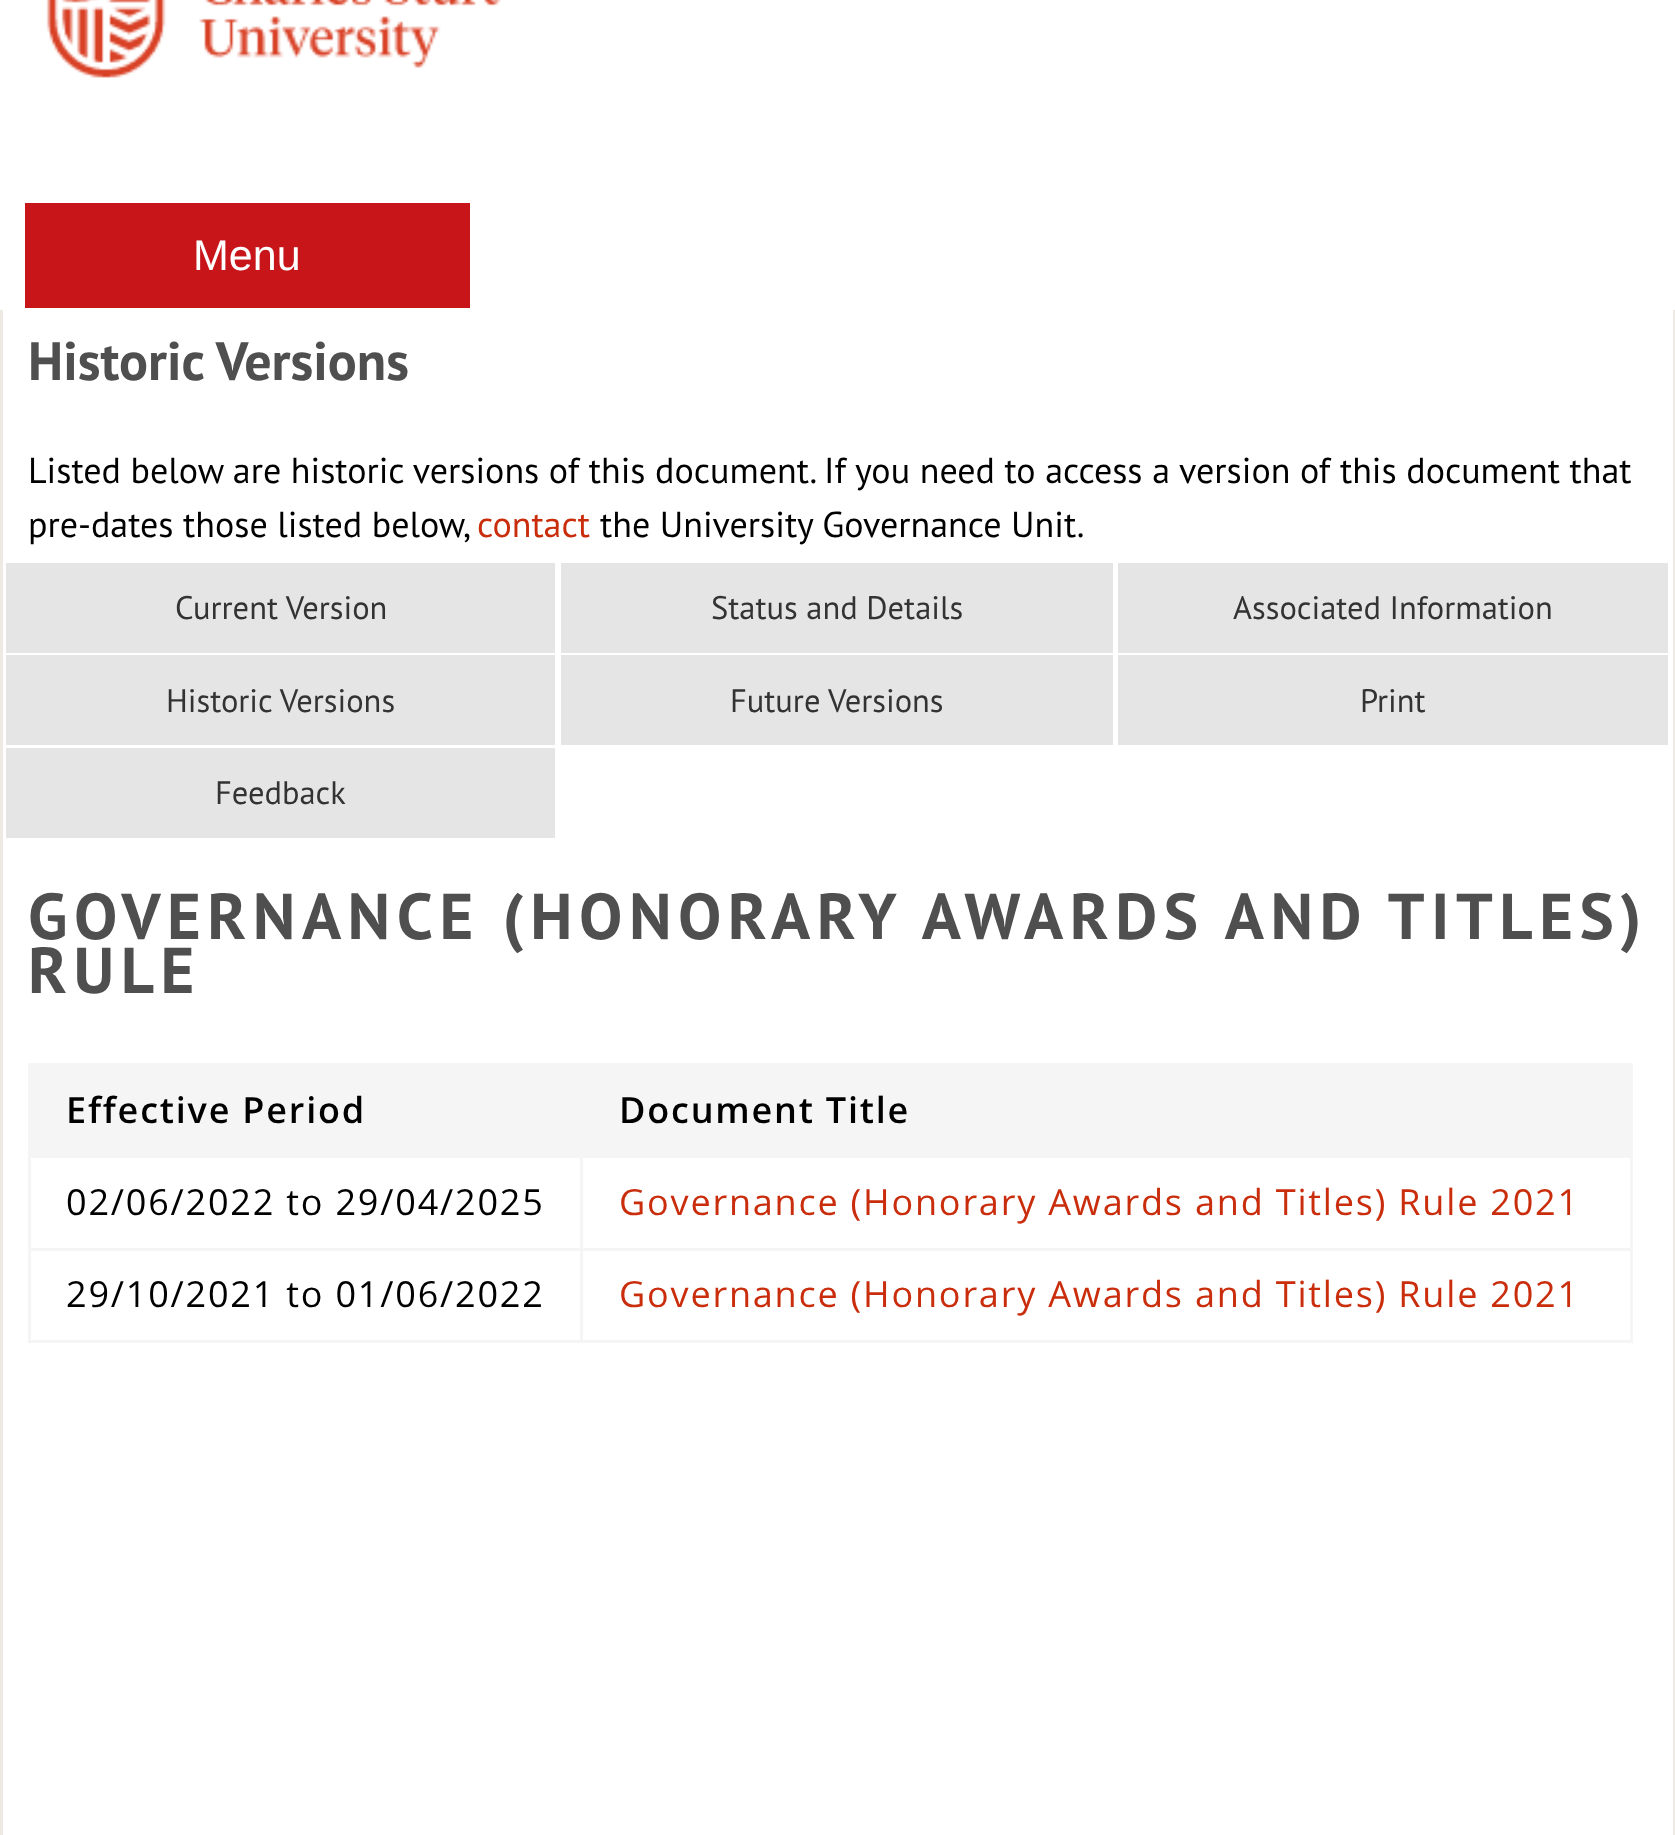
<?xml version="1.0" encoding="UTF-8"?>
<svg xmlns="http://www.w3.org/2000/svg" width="1675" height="1835">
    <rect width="100%" height="100%" fill="#FFFFFF"/>
    <image x="46" y="0" width="455" height="78" href="img_01.png"/>
    <rect x="25" y="203" width="445" height="105" fill="#C81519"/>
    <text x="193" y="270" font-family="Liberation Sans" font-size="43" fill="#FFFFFF">Menu</text>
    <rect x="1673" y="310" width="2" height="1525" fill="#EEE9E2"/>
    <rect x="0" y="310" width="3" height="1525" fill="#EEE9E2"/>
    <text x="28" y="380" font-family="PT Sans" font-size="54" font-weight="700" fill="#4F4F4F">Historic Versions</text>
    <text font-family="PT Sans" font-size="36" fill="#000000">
        <tspan x="28" y="483">Listed below are historic versions of this document. If you need to access a version of this document that</tspan>
        <tspan x="28" y="537">pre-dates those listed below,</tspan>
    </text>
    <text x="477" y="537" font-family="PT Sans" font-size="36" fill="#C92D0C">contact</text>
    <text x="600" y="537" font-family="PT Sans" font-size="36" fill="#000000">the University Governance Unit.</text>
    <rect x="6" y="563" width="549" height="90" fill="#E5E5E5"/>
    <text x="175" y="619" font-family="PT Sans" font-size="32.5" fill="#333333">Current Version</text>
    <rect x="561" y="563" width="552" height="90" fill="#E5E5E5"/>
    <text x="711" y="619" font-family="PT Sans" font-size="32.5" fill="#333333">Status and Details</text>
    <rect x="1118" y="563" width="550" height="90" fill="#E5E5E5"/>
    <text x="1233" y="619" font-family="PT Sans" font-size="32.5" fill="#333333">Associated Information</text>
    <rect x="6" y="655" width="549" height="90" fill="#E5E5E5"/>
    <text x="166" y="712" font-family="PT Sans" font-size="32.5" fill="#333333">Historic Versions</text>
    <rect x="561" y="655" width="552" height="90" fill="#E5E5E5"/>
    <text x="730" y="712" font-family="PT Sans" font-size="32.5" fill="#333333">Future Versions</text>
    <rect x="1118" y="655" width="550" height="90" fill="#E5E5E5"/>
    <text x="1360" y="712" font-family="PT Sans" font-size="32.5" fill="#333333">Print</text>
    <rect x="6" y="748" width="549" height="90" fill="#E5E5E5"/>
    <text x="215" y="804" font-family="PT Sans" font-size="32.5" fill="#333333">Feedback</text>
    <text font-family="PT Sans" font-size="64.8" font-weight="700" letter-spacing="6.5" fill="#4F4F4F">
        <tspan x="28" y="939">GOVERNANCE (HONORARY AWARDS AND TITLES)</tspan>
        <tspan x="28" y="993">RULE</tspan>
    </text>
    <rect x="31" y="1066" width="1599" height="89" fill="#F5F5F5"/>
    <rect x="28" y="1063" width="1605" height="3" fill="#F5F5F5"/>
    <rect x="580" y="1155" width="1053" height="3" fill="#F5F5F5"/>
    <rect x="580" y="1248" width="1053" height="3" fill="#F5F5F5"/>
    <rect x="1630" y="1248" width="3" height="95" fill="#F5F5F5"/>
    <rect x="580" y="1340" width="1053" height="3" fill="#F5F5F5"/>
    <rect x="580" y="1248" width="3" height="95" fill="#F5F5F5"/>
    <rect x="28" y="1248" width="555" height="3" fill="#F5F5F5"/>
    <rect x="580" y="1155" width="3" height="95" fill="#F5F5F5"/>
    <rect x="28" y="1155" width="555" height="3" fill="#F5F5F5"/>
    <rect x="28" y="1340" width="555" height="3" fill="#F5F5F5"/>
    <rect x="28" y="1248" width="3" height="95" fill="#F5F5F5"/>
    <rect x="28" y="1155" width="3" height="95" fill="#F5F5F5"/>
    <rect x="28" y="1063" width="3" height="95" fill="#F5F5F5"/>
    <text x="66" y="1123" font-family="Open Sans" font-size="36" font-weight="600" letter-spacing="1.8" fill="#000000">Effective Period</text>
    <rect x="1630" y="1155" width="3" height="95" fill="#F5F5F5"/>
    <rect x="1630" y="1063" width="3" height="95" fill="#F5F5F5"/>
    <text x="619" y="1123" font-family="Open Sans" font-size="36" font-weight="600" letter-spacing="1.8" fill="#000000">Document Title</text>
    <text x="66" y="1215" font-family="Open Sans" font-size="36" letter-spacing="1.8" fill="#000000">02/06/2022 to 29/04/2025</text>
    <text x="619" y="1215" font-family="Open Sans" font-size="36" letter-spacing="1.8" fill="#C92D0C">Governance (Honorary Awards and Titles) Rule 2021</text>
    <text x="66" y="1307" font-family="Open Sans" font-size="36" letter-spacing="1.8" fill="#000000">29/10/2021 to 01/06/2022</text>
    <text x="619" y="1307" font-family="Open Sans" font-size="36" letter-spacing="1.8" fill="#C92D0C">Governance (Honorary Awards and Titles) Rule 2021</text>
</svg>
